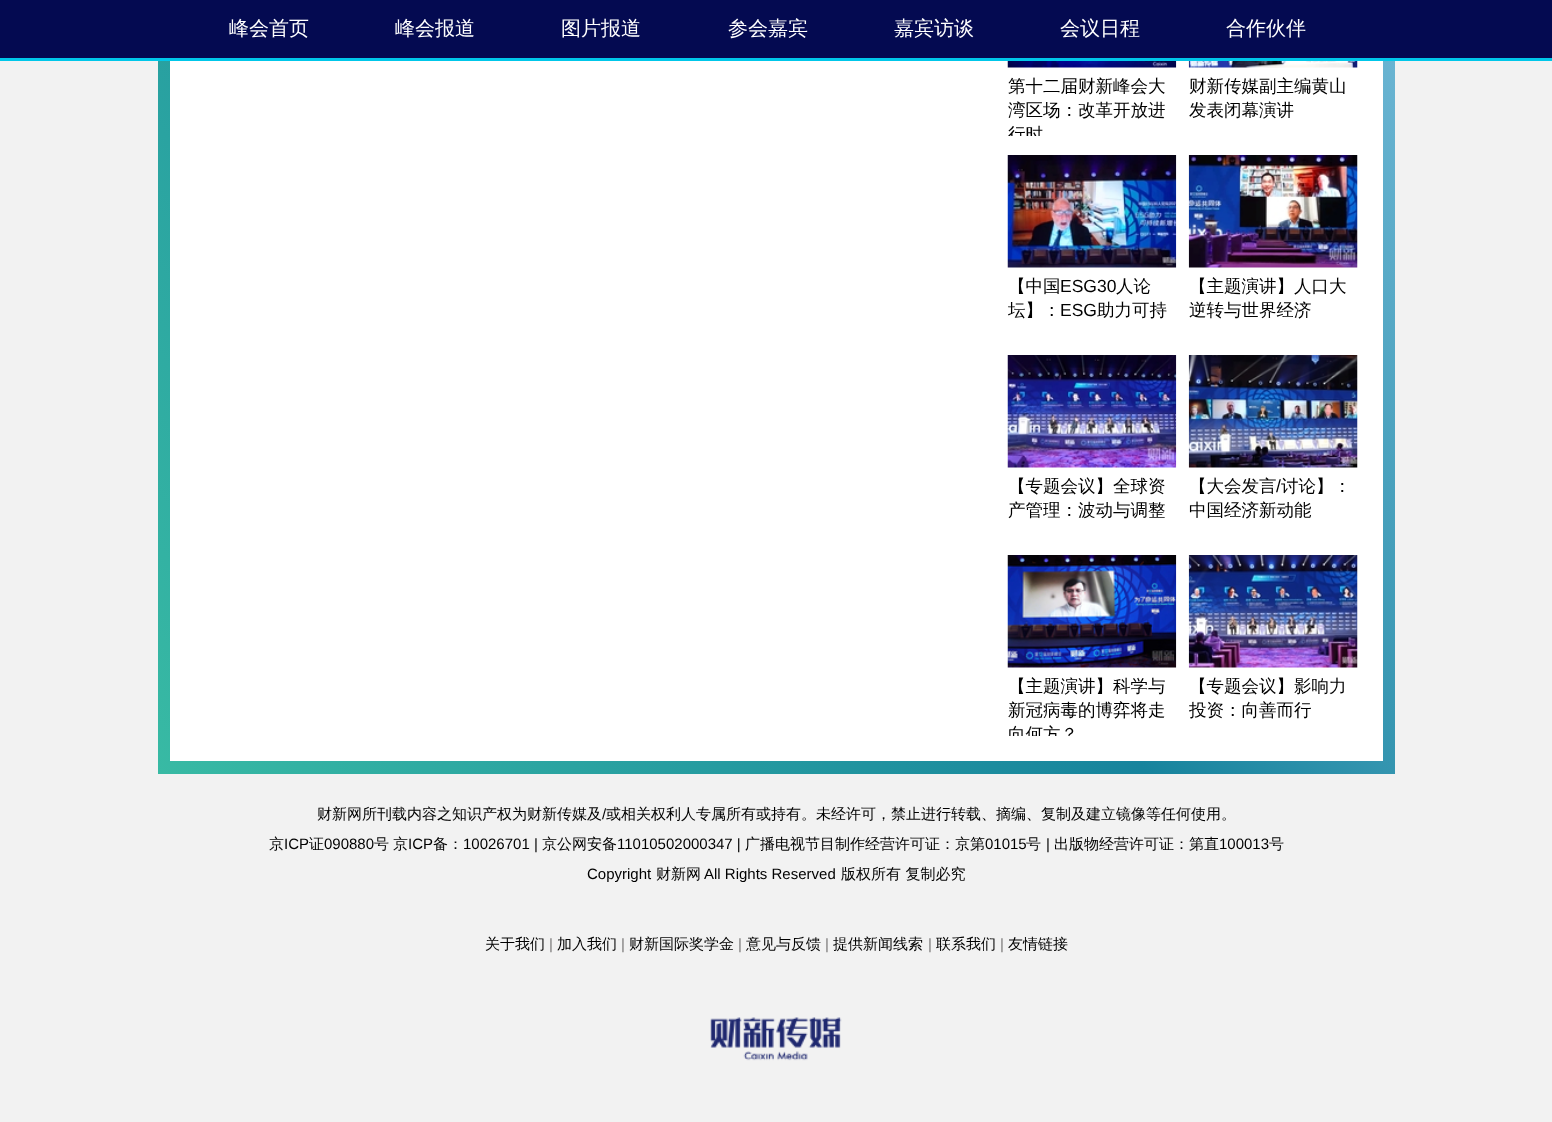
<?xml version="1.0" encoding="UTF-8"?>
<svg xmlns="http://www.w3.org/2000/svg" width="1552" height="1122">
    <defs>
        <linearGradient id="g1" gradientUnits="userSpaceOnUse" x1="-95" y1="384" x2="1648" y2="-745"><stop offset="0" stop-color="#38BAA4"/><stop offset="0.4" stop-color="#17849D"/><stop offset="0.8" stop-color="#8AC7E7"/></linearGradient>
        <clipPath id="clip1"><rect x="1008" y="0" width="168" height="136"/></clipPath>
        <clipPath id="clip2"><rect x="1008" y="155" width="168" height="181"/></clipPath>
        <clipPath id="clip3"><rect x="1008" y="555" width="168" height="181"/></clipPath>
    </defs>
    <rect width="100%" height="100%" fill="#F2F2F2"/>
    <rect x="0" y="58" width="1552" height="3" fill="#00C7E9"/>
    <rect x="0" y="0" width="1552" height="58" fill="#040A51"/>
    <text x="229" y="35" font-family="WenQuanYi Zen Hei" font-size="20" font-weight="500" fill="#FFFFFF">峰会首页</text>
    <text x="395" y="35" font-family="WenQuanYi Zen Hei" font-size="20" font-weight="500" fill="#FFFFFF">峰会报道</text>
    <text x="561" y="35" font-family="WenQuanYi Zen Hei" font-size="20" font-weight="500" fill="#FFFFFF">图片报道</text>
    <text x="728" y="35" font-family="WenQuanYi Zen Hei" font-size="20" font-weight="500" fill="#FFFFFF">参会嘉宾</text>
    <text x="894" y="35" font-family="WenQuanYi Zen Hei" font-size="20" font-weight="500" fill="#FFFFFF">嘉宾访谈</text>
    <text x="1060" y="35" font-family="WenQuanYi Zen Hei" font-size="20" font-weight="500" fill="#FFFFFF">会议日程</text>
    <text x="1226" y="35" font-family="WenQuanYi Zen Hei" font-size="20" font-weight="500" fill="#FFFFFF">合作伙伴</text>
    <rect x="158" y="61" width="1237" height="713" fill="url(#g1)"/>
    <rect x="170" y="61" width="1213" height="700" fill="#FFFFFF"/>
    <image x="1007" y="61" width="170" height="7" href="img_01.png"/>
    <text font-family="WenQuanYi Zen Hei" font-size="17.5" font-weight="500" fill="#000000">
        <tspan x="1008" y="92">第十二届财新峰会大</tspan>
        <tspan x="1008" y="116">湾区场：改革开放进</tspan>
    </text>
    <g clip-path="url(#clip1)">
        <text x="1008" y="140" font-family="WenQuanYi Zen Hei" font-size="17.5" font-weight="500" fill="#000000">行时</text>
    </g>
    <image x="1188" y="61" width="170" height="7" href="img_02.png"/>
    <text font-family="WenQuanYi Zen Hei" font-size="17.5" font-weight="500" fill="#000000">
        <tspan x="1189" y="92">财新传媒副主编黄山</tspan>
        <tspan x="1189" y="116">发表闭幕演讲</tspan>
    </text>
    <image x="1007" y="155" width="170" height="113" href="img_03.png"/>
    <text x="1008" y="292" font-family="WenQuanYi Zen Hei" font-size="17.5" font-weight="500" fill="#000000">【中国</text>
    <text x="1060" y="292" font-family="Liberation Sans" font-size="17.5" fill="#000000">ESG30</text>
    <text x="1116" y="292" font-family="WenQuanYi Zen Hei" font-size="17.5" font-weight="500" fill="#000000">人论</text>
    <g clip-path="url(#clip2)">
        <text x="1008" y="316" font-family="WenQuanYi Zen Hei" font-size="17.5" font-weight="500" fill="#000000">坛】：</text>
    </g>
    <text x="1060" y="316" font-family="Liberation Sans" font-size="17.5" fill="#000000">ESG</text>
    <text x="1097" y="316" font-family="WenQuanYi Zen Hei" font-size="17.5" font-weight="500" fill="#000000">助力可持</text>
    <image x="1188" y="155" width="170" height="113" href="img_04.png"/>
    <text font-family="WenQuanYi Zen Hei" font-size="17.5" font-weight="500" fill="#000000">
        <tspan x="1189" y="292">【主题演讲】人口大</tspan>
        <tspan x="1189" y="316">逆转与世界经济</tspan>
    </text>
    <image x="1007" y="355" width="170" height="113" href="img_05.png"/>
    <text font-family="WenQuanYi Zen Hei" font-size="17.5" font-weight="500" fill="#000000">
        <tspan x="1008" y="492">【专题会议】全球资</tspan>
        <tspan x="1008" y="516">产管理：波动与调整</tspan>
    </text>
    <image x="1188" y="355" width="170" height="113" href="img_06.png"/>
    <text x="1189" y="492" font-family="WenQuanYi Zen Hei" font-size="17.5" font-weight="500" fill="#000000">【大会发言</text>
    <text x="1276" y="492" font-family="Liberation Sans" font-size="17.5" fill="#000000">/</text>
    <text x="1281" y="492" font-family="WenQuanYi Zen Hei" font-size="17.5" font-weight="500" fill="#000000">讨论】：</text>
    <text x="1189" y="516" font-family="WenQuanYi Zen Hei" font-size="17.5" font-weight="500" fill="#000000">中国经济新动能</text>
    <image x="1007" y="555" width="170" height="113" href="img_07.png"/>
    <text font-family="WenQuanYi Zen Hei" font-size="17.5" font-weight="500" fill="#000000">
        <tspan x="1008" y="692">【主题演讲】科学与</tspan>
        <tspan x="1008" y="716">新冠病毒的博弈将走</tspan>
    </text>
    <g clip-path="url(#clip3)">
        <text x="1008" y="740" font-family="WenQuanYi Zen Hei" font-size="17.5" font-weight="500" fill="#000000">向何方？</text>
    </g>
    <image x="1188" y="555" width="170" height="113" href="img_08.png"/>
    <text font-family="WenQuanYi Zen Hei" font-size="17.5" font-weight="500" fill="#000000">
        <tspan x="1189" y="692">【专题会议】影响力</tspan>
        <tspan x="1189" y="716">投资：向善而行</tspan>
    </text>
    <text x="317" y="819" font-family="WenQuanYi Zen Hei" font-size="15" font-weight="500" fill="#000000">财新网所刊载内容之知识产权为财新传媒及</text>
    <text x="602" y="819" font-family="Liberation Sans" font-size="15" fill="#000000">/</text>
    <text x="606" y="819" font-family="WenQuanYi Zen Hei" font-size="15" font-weight="500" fill="#000000">或相关权利人专属所有或持有。未经许可，禁止进行转载、摘编、复制及建立镜像等任何使用。</text>
    <text x="269" y="849" font-family="WenQuanYi Zen Hei" font-size="15" font-weight="500" fill="#000000">京</text>
    <text x="284" y="849" font-family="Liberation Sans" font-size="15" fill="#000000">ICP</text>
    <text x="309" y="849" font-family="WenQuanYi Zen Hei" font-size="15" font-weight="500" fill="#000000">证</text>
    <text x="324" y="849" font-family="Liberation Sans" font-size="15" fill="#000000">090880</text>
    <text x="374" y="849" font-family="WenQuanYi Zen Hei" font-size="15" font-weight="500" fill="#000000">号</text>
    <text x="393" y="849" font-family="WenQuanYi Zen Hei" font-size="15" font-weight="500" fill="#000000">京</text>
    <text x="408" y="849" font-family="Liberation Sans" font-size="15" fill="#000000">ICP</text>
    <text x="433" y="849" font-family="WenQuanYi Zen Hei" font-size="15" font-weight="500" fill="#000000">备：</text>
    <text x="463" y="849" font-family="Liberation Sans" font-size="15" fill="#000000">10026701 |</text>
    <text x="542" y="849" font-family="WenQuanYi Zen Hei" font-size="15" font-weight="500" fill="#000000">京公网安备</text>
    <text x="617" y="849" font-family="Liberation Sans" font-size="15" fill="#000000">11010502000347 |</text>
    <text x="745" y="849" font-family="WenQuanYi Zen Hei" font-size="15" font-weight="500" fill="#000000">广播电视节目制作经营许可证：京第</text>
    <text x="985" y="849" font-family="Liberation Sans" font-size="15" fill="#000000">01015</text>
    <text x="1026" y="849" font-family="WenQuanYi Zen Hei" font-size="15" font-weight="500" fill="#000000">号</text>
    <text x="1046" y="849" font-family="Liberation Sans" font-size="15" fill="#000000">|</text>
    <text x="1054" y="849" font-family="WenQuanYi Zen Hei" font-size="15" font-weight="500" fill="#000000">出版物经营许可证：第直</text>
    <text x="1219" y="849" font-family="Liberation Sans" font-size="15" fill="#000000">100013</text>
    <text x="1269" y="849" font-family="WenQuanYi Zen Hei" font-size="15" font-weight="500" fill="#000000">号</text>
    <text x="587" y="879" font-family="Liberation Sans" font-size="15" fill="#000000">Copyright</text>
    <text x="656" y="879" font-family="WenQuanYi Zen Hei" font-size="15" font-weight="500" fill="#000000">财新网</text>
    <text x="704" y="879" font-family="Liberation Sans" font-size="15" fill="#000000">All Rights Reserved</text>
    <text x="841" y="879" font-family="WenQuanYi Zen Hei" font-size="15" font-weight="500" fill="#000000">版权所有 复制必究</text>
    <text x="485" y="949" font-family="WenQuanYi Zen Hei" font-size="15" font-weight="500" fill="#000000">关于我们</text>
    <text x="549" y="949" font-family="Liberation Sans" font-size="15" fill="#797878">|</text>
    <text x="557" y="949" font-family="WenQuanYi Zen Hei" font-size="15" font-weight="500" fill="#000000">加入我们</text>
    <text x="621" y="949" font-family="Liberation Sans" font-size="15" fill="#797878">|</text>
    <text x="629" y="949" font-family="WenQuanYi Zen Hei" font-size="15" font-weight="500" fill="#000000">财新国际奖学金</text>
    <text x="738" y="949" font-family="Liberation Sans" font-size="15" fill="#797878">|</text>
    <text x="746" y="949" font-family="WenQuanYi Zen Hei" font-size="15" font-weight="500" fill="#000000">意见与反馈</text>
    <text x="825" y="949" font-family="Liberation Sans" font-size="15" fill="#797878">|</text>
    <text x="833" y="949" font-family="WenQuanYi Zen Hei" font-size="15" font-weight="500" fill="#000000">提供新闻线索</text>
    <text x="928" y="949" font-family="Liberation Sans" font-size="15" fill="#797878">|</text>
    <text x="936" y="949" font-family="WenQuanYi Zen Hei" font-size="15" font-weight="500" fill="#000000">联系我们</text>
    <text x="1000" y="949" font-family="Liberation Sans" font-size="15" fill="#797878">|</text>
    <text x="1008" y="949" font-family="WenQuanYi Zen Hei" font-size="15" font-weight="500" fill="#000000">友情链接</text>
    <image x="710" y="1017" width="132" height="44" href="img_09.png"/>
</svg>
